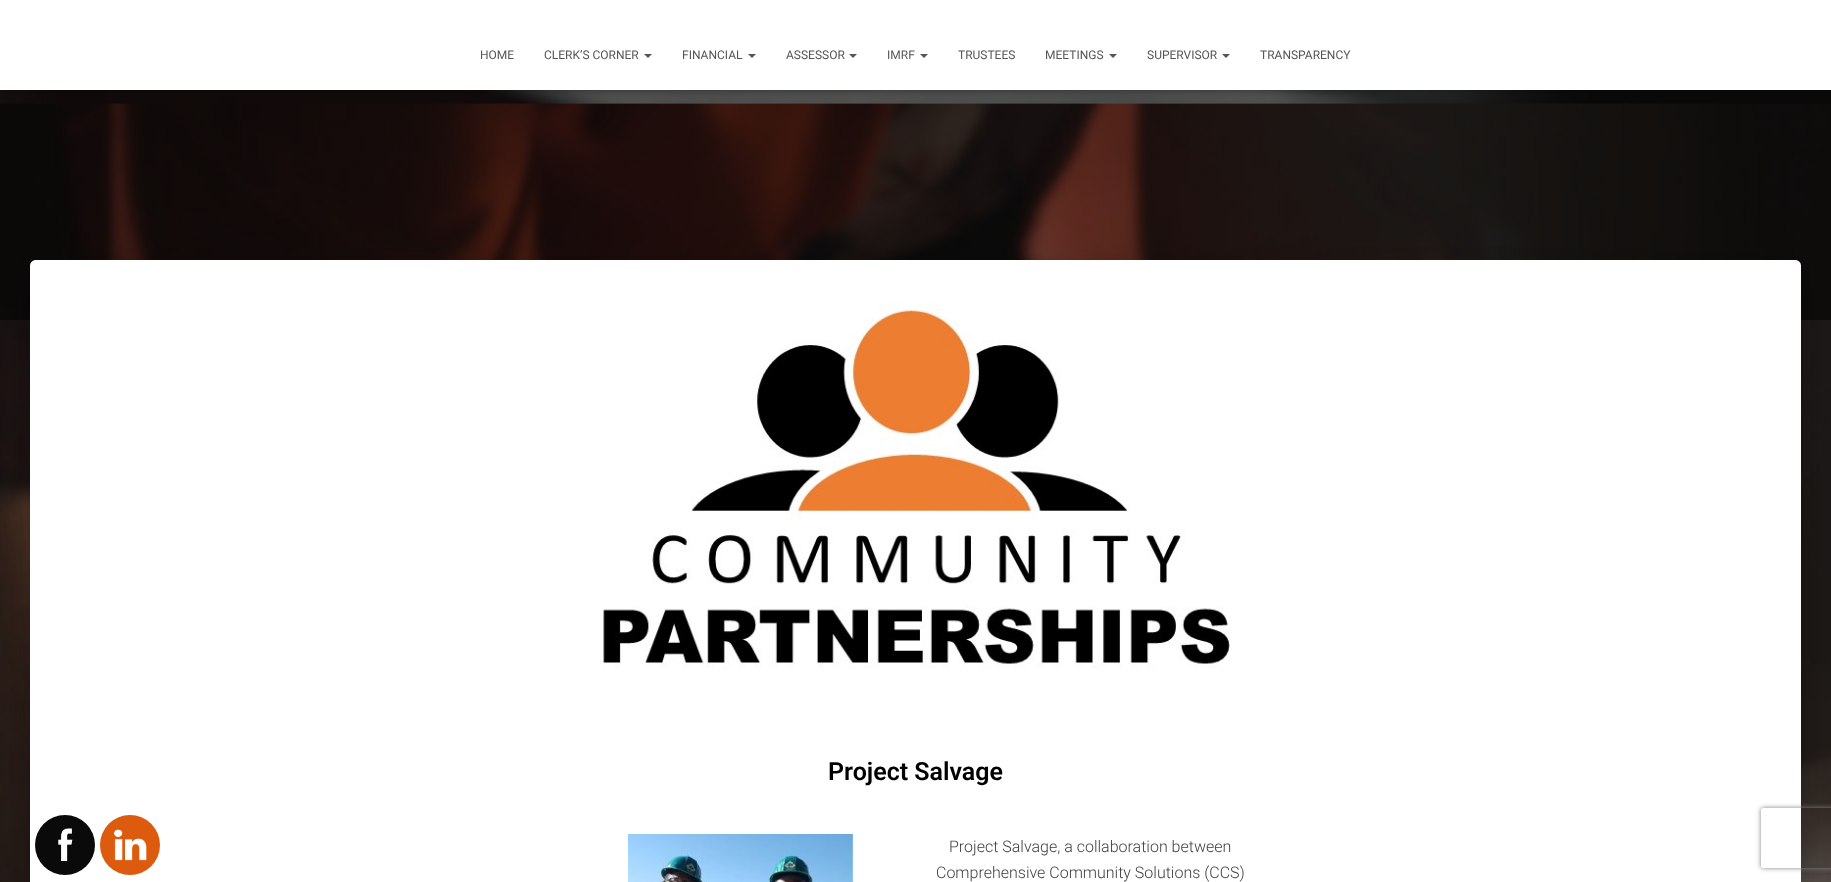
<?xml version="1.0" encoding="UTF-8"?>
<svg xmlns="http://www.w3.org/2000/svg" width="1831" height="882">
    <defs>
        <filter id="blur1" x="-50%" y="-200%" width="200%" height="500%"><feGaussianBlur stdDeviation="5"/></filter>
        <filter id="blur2" x="-50%" y="-200%" width="200%" height="500%"><feGaussianBlur stdDeviation="15"/></filter>
        <filter id="blur3" x="-50%" y="-200%" width="200%" height="500%"><feGaussianBlur stdDeviation="12"/></filter>
        <filter id="blur4" x="-50%" y="-200%" width="200%" height="500%"><feGaussianBlur stdDeviation="2.5"/></filter>
        <clipPath id="clip1"><path d="M 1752 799 H 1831 V 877 H 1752 Z M 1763 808 H 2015 C 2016 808 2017 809 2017 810 V 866 C 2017 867 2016 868 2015 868 H 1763 C 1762 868 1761 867 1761 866 V 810 C 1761 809 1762 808 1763 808 Z" clip-rule="evenodd"/></clipPath>
    </defs>
    <rect width="100%" height="100%" fill="#FFFFFF"/>
    <image x="0" y="90" width="1831" height="792" href="img_01.png"/>
    <rect x="0" y="90" width="1831" height="230" fill="#000000" fill-opacity="0.5"/>
    <rect x="35" y="273" width="1761" height="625" rx="1" fill="#000000" fill-opacity="0.2" filter="url(#blur1)"/>
    <rect x="25" y="261" width="1781" height="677" rx="11" fill="#000000" fill-opacity="0.12" filter="url(#blur2)"/>
    <rect x="28" y="274" width="1775" height="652" rx="8" fill="#000000" fill-opacity="0.14" filter="url(#blur3)"/>
    <path d="M 36 260 H 1795 C 1798.5 260 1801 262.5 1801 266 V 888 H 30 V 266 C 30 262.5 32.5 260 36 260 Z" fill="#FFFFFF"/>
    <circle cx="65" cy="845" r="30" fill="#0A0A0A"/>
    <image x="58" y="828" width="15" height="33" href="img_02.png"/>
    <circle cx="130" cy="845" r="30" fill="#DD5B0F"/>
    <image x="114" y="829" width="33" height="32" href="img_03.png"/>
    <rect x="2" y="6" width="1827" height="86" fill="#000000" fill-opacity="0.1" filter="url(#blur4)"/>
    <rect x="0" y="1" width="1831" height="90" fill="#000000" fill-opacity="0.12" filter="url(#blur1)"/>
    <rect x="6" y="7" width="1819" height="78" fill="#000000" fill-opacity="0.42" filter="url(#blur1)"/>
    <rect x="0" y="0" width="1831" height="90" fill="#FFFFFF"/>
    <text x="480" y="59" font-family="Roboto" font-size="12" fill="#555555">HOME</text>
    <text x="544" y="59" font-family="Roboto" font-size="12" fill="#555555">CLERK’S CORNER</text>
    <path d="M 644 54 H 652 L 648 58 Z" fill="#555555"/>
    <text x="682" y="59" font-family="Roboto" font-size="12" fill="#555555">FINANCIAL</text>
    <path d="M 748 54 H 756 L 752 58 Z" fill="#555555"/>
    <text x="786" y="59" font-family="Roboto" font-size="12" fill="#555555">ASSESSOR</text>
    <path d="M 849 54 H 857 L 853 58 Z" fill="#555555"/>
    <text x="887" y="59" font-family="Roboto" font-size="12" fill="#555555">IMRF</text>
    <path d="M 920 54 H 928 L 924 58 Z" fill="#555555"/>
    <text x="958" y="59" font-family="Roboto" font-size="12" fill="#555555">TRUSTEES</text>
    <text x="1045" y="59" font-family="Roboto" font-size="12" fill="#555555">MEETINGS</text>
    <path d="M 1109 54 H 1117 L 1113 58 Z" fill="#555555"/>
    <text x="1147" y="59" font-family="Roboto" font-size="12" fill="#555555">SUPERVISOR</text>
    <path d="M 1222 54 H 1230 L 1226 58 Z" fill="#555555"/>
    <text x="1260" y="59" font-family="Roboto" font-size="12" fill="#555555">TRANSPARENCY</text>
    <image x="603" y="301" width="629" height="368" href="img_04.png"/>
    <text x="828" y="780" font-family="Roboto" font-size="25" font-weight="600" fill="#000000">Project Salvage</text>
    <image x="628" y="834" width="225" height="48" href="img_05.png"/>
    <text x="949" y="852" font-family="Roboto" font-size="16" font-weight="300" fill="#414141">Project Salvage, a collaboration between</text>
    <text x="936" y="878" font-family="Roboto" font-size="16" font-weight="300" fill="#414141">Comprehensive Community Solutions (CCS)</text>
    <g clip-path="url(#clip1)">
        <rect x="1761" y="808" width="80" height="60" rx="2" fill="#808080" filter="url(#blur4)"/>
    </g>
</svg>
